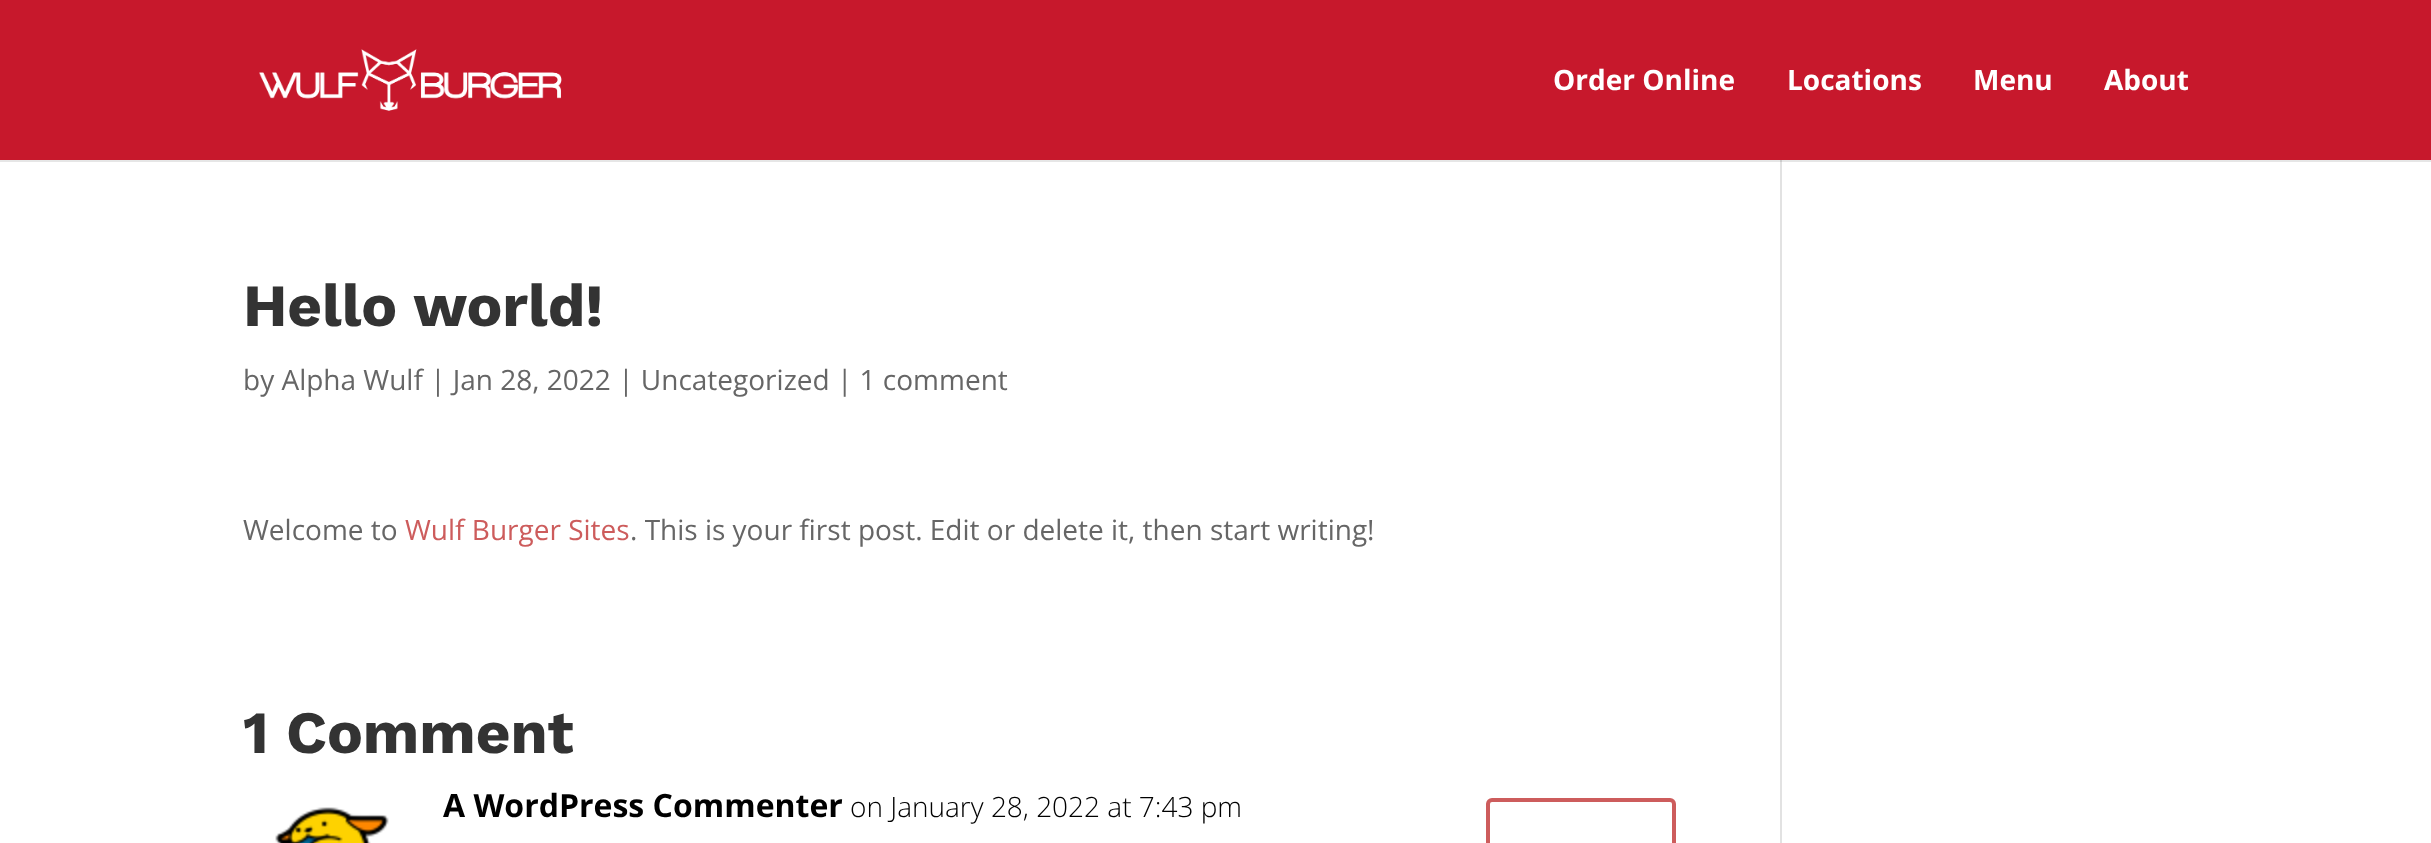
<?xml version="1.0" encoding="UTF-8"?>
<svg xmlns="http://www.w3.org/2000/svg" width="2431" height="843">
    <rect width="100%" height="100%" fill="#FFFFFF"/>
    <rect x="0" y="160" width="2431" height="2" fill="#E6E6E6"/>
    <rect x="0" y="0" width="2431" height="160" fill="#C7182C"/>
    <image x="259" y="49" width="303" height="62" href="img_01.png"/>
    <text x="1553" y="90" font-family="Open Sans" font-size="28" font-weight="700" fill="#FFFFFF">Order Online</text>
    <text x="1787" y="90" font-family="Open Sans" font-size="28" font-weight="700" fill="#FFFFFF">Locations</text>
    <text x="1973" y="90" font-family="Open Sans" font-size="28" font-weight="700" fill="#FFFFFF">Menu</text>
    <text x="2104" y="90" font-family="Open Sans" font-size="28" font-weight="700" fill="#FFFFFF">About</text>
    <text x="243" y="326" font-family="Work Sans" font-size="60" font-weight="700" fill="#333333">Hello world!</text>
    <text x="243" y="390" font-family="Open Sans" font-size="28" fill="#666666">by Alpha Wulf | Jan 28, 2022 | Uncategorized | 1 comment</text>
    <text x="243" y="540" font-family="Open Sans" font-size="28" fill="#666666">Welcome to</text>
    <text x="405" y="540" font-family="Open Sans" font-size="28" fill="#CD5C5C">Wulf Burger Sites</text>
    <text x="630" y="540" font-family="Open Sans" font-size="28" fill="#666666">. This is your first post. Edit or delete it, then start writing!</text>
    <text x="243" y="753" font-family="Work Sans" font-size="60" font-weight="700" fill="#333333">1 Comment</text>
    <image x="275" y="807" width="114" height="36" href="img_02.png"/>
    <text x="443" y="817" font-family="Open Sans" font-size="32" font-weight="700" fill="#000000">A WordPress Commenter</text>
    <text x="850" y="817" font-family="Open Sans" font-size="28" font-weight="300" fill="#000000">on January 28, 2022 at 7:43 pm</text>
    <rect x="1488" y="800" width="186" height="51" rx="4" fill="none" stroke="#CD5C5C" stroke-width="4"/>
    <rect x="1780" y="160" width="2" height="683" fill="#E2E2E2"/>
    <rect x="1780" y="160" width="2" height="2" fill="#CBCBCB"/>
</svg>
